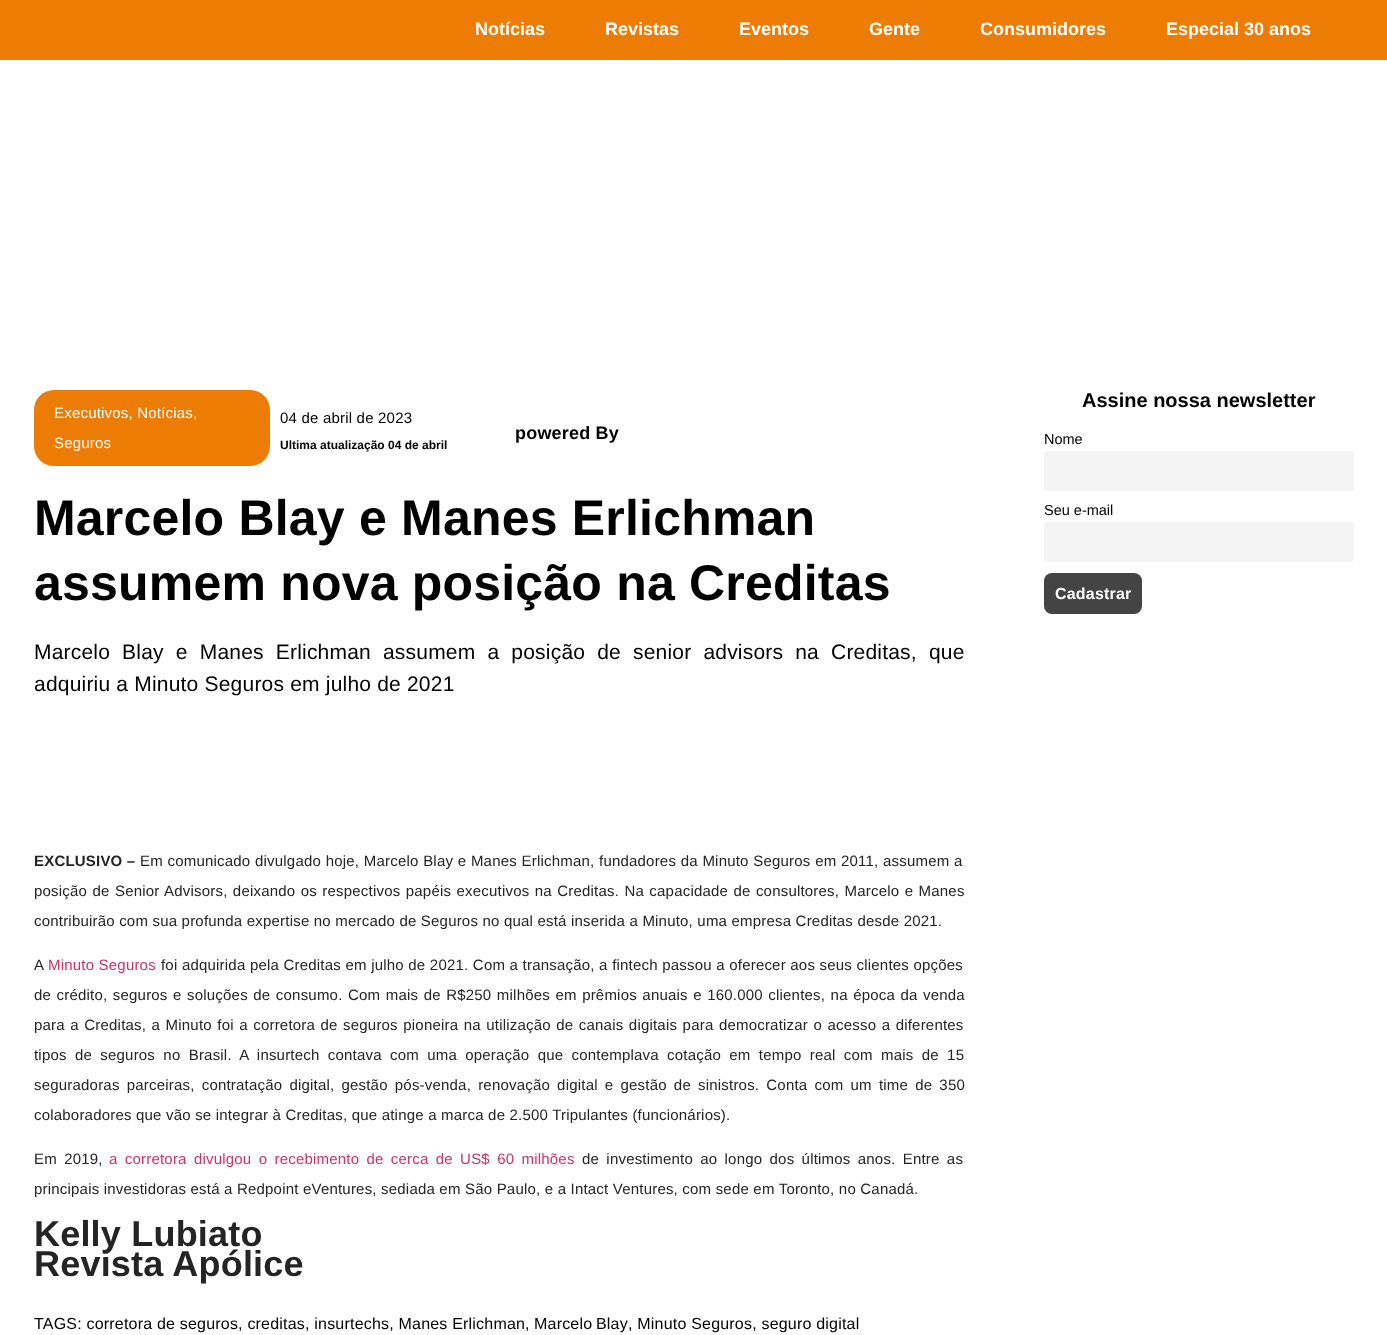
<?xml version="1.0" encoding="UTF-8"?>
<svg xmlns="http://www.w3.org/2000/svg" width="1387" height="1335">
    <rect width="100%" height="100%" fill="#FFFFFF"/>
    <rect x="0" y="0" width="1387" height="60" fill="#EC7C04"/>
    <text x="475" y="35" font-family="Liberation Sans" font-size="18" font-weight="700" fill="#FFFFFF">Notícias</text>
    <text x="605" y="35" font-family="Liberation Sans" font-size="18" font-weight="700" fill="#FFFFFF">Revistas</text>
    <text x="739" y="35" font-family="Liberation Sans" font-size="18" font-weight="700" fill="#FFFFFF">Eventos</text>
    <text x="869" y="35" font-family="Liberation Sans" font-size="18" font-weight="700" fill="#FFFFFF">Gente</text>
    <text x="980" y="35" font-family="Liberation Sans" font-size="18" font-weight="700" fill="#FFFFFF">Consumidores</text>
    <text x="1166" y="35" font-family="Liberation Sans" font-size="18" font-weight="700" fill="#FFFFFF">Especial 30 anos</text>
    <rect x="34" y="390" width="236" height="76" rx="20" fill="#EC7C04"/>
    <text x="54" y="418" font-family="Liberation Sans" font-size="15" letter-spacing="0.2" fill="#FFFFFF">Executivos, Notícias,</text>
    <text x="54" y="448" font-family="Liberation Sans" font-size="15" letter-spacing="0.2" fill="#FFFFFF">Seguros</text>
    <text x="280" y="423" font-family="Liberation Sans" font-size="15" letter-spacing="0.2" fill="#000000">04 de abril de 2023</text>
    <text x="280" y="449" font-family="Liberation Sans" font-size="12" font-weight="700" fill="#000000">Ultima atualização 04 de abril</text>
    <text x="515" y="439" font-family="Liberation Sans" font-size="18" font-weight="700" letter-spacing="0.2" fill="#000000">powered By</text>
    <text font-family="Liberation Sans" font-size="50" font-weight="700" letter-spacing="0.2" fill="#000000">
        <tspan x="34" y="535">Marcelo Blay e Manes Erlichman</tspan>
        <tspan x="34" y="600">assumem nova posição na Creditas</tspan>
    </text>
    <text font-family="Liberation Sans" font-size="21" letter-spacing="0.2" fill="#000000">
        <tspan x="34" y="659" word-spacing="6">Marcelo Blay e Manes Erlichman assumem a posição de senior advisors na Creditas, que</tspan>
        <tspan x="34" y="691">adquiriu a Minuto Seguros em julho de 2021</tspan>
    </text>
    <text x="34" y="866" font-family="Liberation Sans" font-size="15" font-weight="700" letter-spacing="0.2" fill="#242424">EXCLUSIVO –</text>
    <text x="140" y="866" word-spacing="0.25" font-family="Liberation Sans" font-size="15" letter-spacing="0.2" fill="#242424">Em comunicado divulgado hoje, Marcelo Blay e Manes Erlichman, fundadores da Minuto Seguros em 2011, assumem a</text>
    <text x="34" y="896" word-spacing="1" font-family="Liberation Sans" font-size="15" letter-spacing="0.2" fill="#242424">posição de Senior Advisors, deixando os respectivos papéis executivos na Creditas. Na capacidade de consultores, Marcelo e Manes</text>
    <text x="34" y="926" font-family="Liberation Sans" font-size="15" letter-spacing="0.2" fill="#242424">contribuirão com sua profunda expertise no mercado de Seguros no qual está inserida a Minuto, uma empresa Creditas desde 2021.</text>
    <text x="34" y="970" font-family="Liberation Sans" font-size="15" letter-spacing="0.2" fill="#242424">A</text>
    <text x="48" y="970" font-family="Liberation Sans" font-size="15" letter-spacing="0.2" fill="#CC3366">Minuto Seguros</text>
    <text x="161" y="970" word-spacing="0.1" font-family="Liberation Sans" font-size="15" letter-spacing="0.2" fill="#242424">foi adquirida pela Creditas em julho de 2021. Com a transação, a fintech passou a oferecer aos seus clientes opções</text>
    <text x="34" y="1000" word-spacing="1.1" font-family="Liberation Sans" font-size="15" letter-spacing="0.2" fill="#242424">de crédito, seguros e soluções de consumo. Com mais de R$250 milhões em prêmios anuais e 160.000 clientes, na época da venda</text>
    <text x="34" y="1030" word-spacing="1.1" font-family="Liberation Sans" font-size="15" letter-spacing="0.2" fill="#242424">para a Creditas, a Minuto foi a corretora de seguros pioneira na utilização de canais digitais para democratizar o acesso a diferentes</text>
    <text x="34" y="1060" word-spacing="3.9" font-family="Liberation Sans" font-size="15" letter-spacing="0.2" fill="#242424">tipos de seguros no Brasil. A insurtech contava com uma operação que contemplava cotação em tempo real com mais de 15</text>
    <text x="34" y="1090" word-spacing="2.75" font-family="Liberation Sans" font-size="15" letter-spacing="0.2" fill="#242424">seguradoras parceiras, contratação digital, gestão pós-venda, renovação digital e gestão de sinistros. Conta com um time de 350</text>
    <text x="34" y="1120" font-family="Liberation Sans" font-size="15" letter-spacing="0.2" fill="#242424">colaboradores que vão se integrar à Creditas, que atinge a marca de 2.500 Tripulantes (funcionários).</text>
    <text x="34" y="1164" word-spacing="2.9" font-family="Liberation Sans" font-size="15" letter-spacing="0.2" fill="#242424">Em 2019,</text>
    <text x="109" y="1164" word-spacing="2.9" font-family="Liberation Sans" font-size="15" letter-spacing="0.2" fill="#CC3366">a corretora divulgou o recebimento de cerca de US$ 60 milhões</text>
    <text x="582" y="1164" word-spacing="2.9" font-family="Liberation Sans" font-size="15" letter-spacing="0.2" fill="#242424">de investimento ao longo dos últimos anos. Entre as</text>
    <text x="34" y="1194" font-family="Liberation Sans" font-size="15" letter-spacing="0.2" fill="#242424">principais investidoras está a Redpoint eVentures, sediada em São Paulo, e a Intact Ventures, com sede em Toronto, no Canadá.</text>
    <text font-family="Liberation Sans" font-size="36" font-weight="700" letter-spacing="0.2" fill="#242424">
        <tspan x="34" y="1246">Kelly Lubiato</tspan>
        <tspan x="34" y="1276">Revista Apólice</tspan>
    </text>
    <text x="34" y="1329" font-family="Liberation Sans" font-size="16" letter-spacing="0.2" fill="#000000">TAGS: corretora de seguros, creditas, insurtechs, Manes Erlichman,</text>
    <text x="534" y="1329" word-spacing="-1" font-family="Liberation Sans" font-size="16" letter-spacing="0.2" fill="#000000">Marcelo Blay</text>
    <text x="628" y="1329" font-family="Liberation Sans" font-size="16" letter-spacing="0.2" fill="#000000">, Minuto Seguros, seguro digital</text>
    <text x="1082" y="407" font-family="Liberation Sans" font-size="20" font-weight="700" fill="#000000">Assine nossa newsletter</text>
    <text x="1044" y="444" font-family="Liberation Sans" font-size="14.5" fill="#000000">Nome</text>
    <rect x="1044" y="451" width="310" height="40" rx="3" fill="#F4F4F4"/>
    <text x="1044" y="515" font-family="Liberation Sans" font-size="14.5" fill="#000000">Seu e-mail</text>
    <rect x="1044" y="522" width="310" height="40" rx="3" fill="#F4F4F4"/>
    <rect x="1044" y="573" width="98" height="41" rx="8" fill="#444444"/>
    <text x="1055" y="599" font-family="Liberation Sans" font-size="16" font-weight="700" letter-spacing="0.2" fill="#FFFFFF">Cadastrar</text>
</svg>
